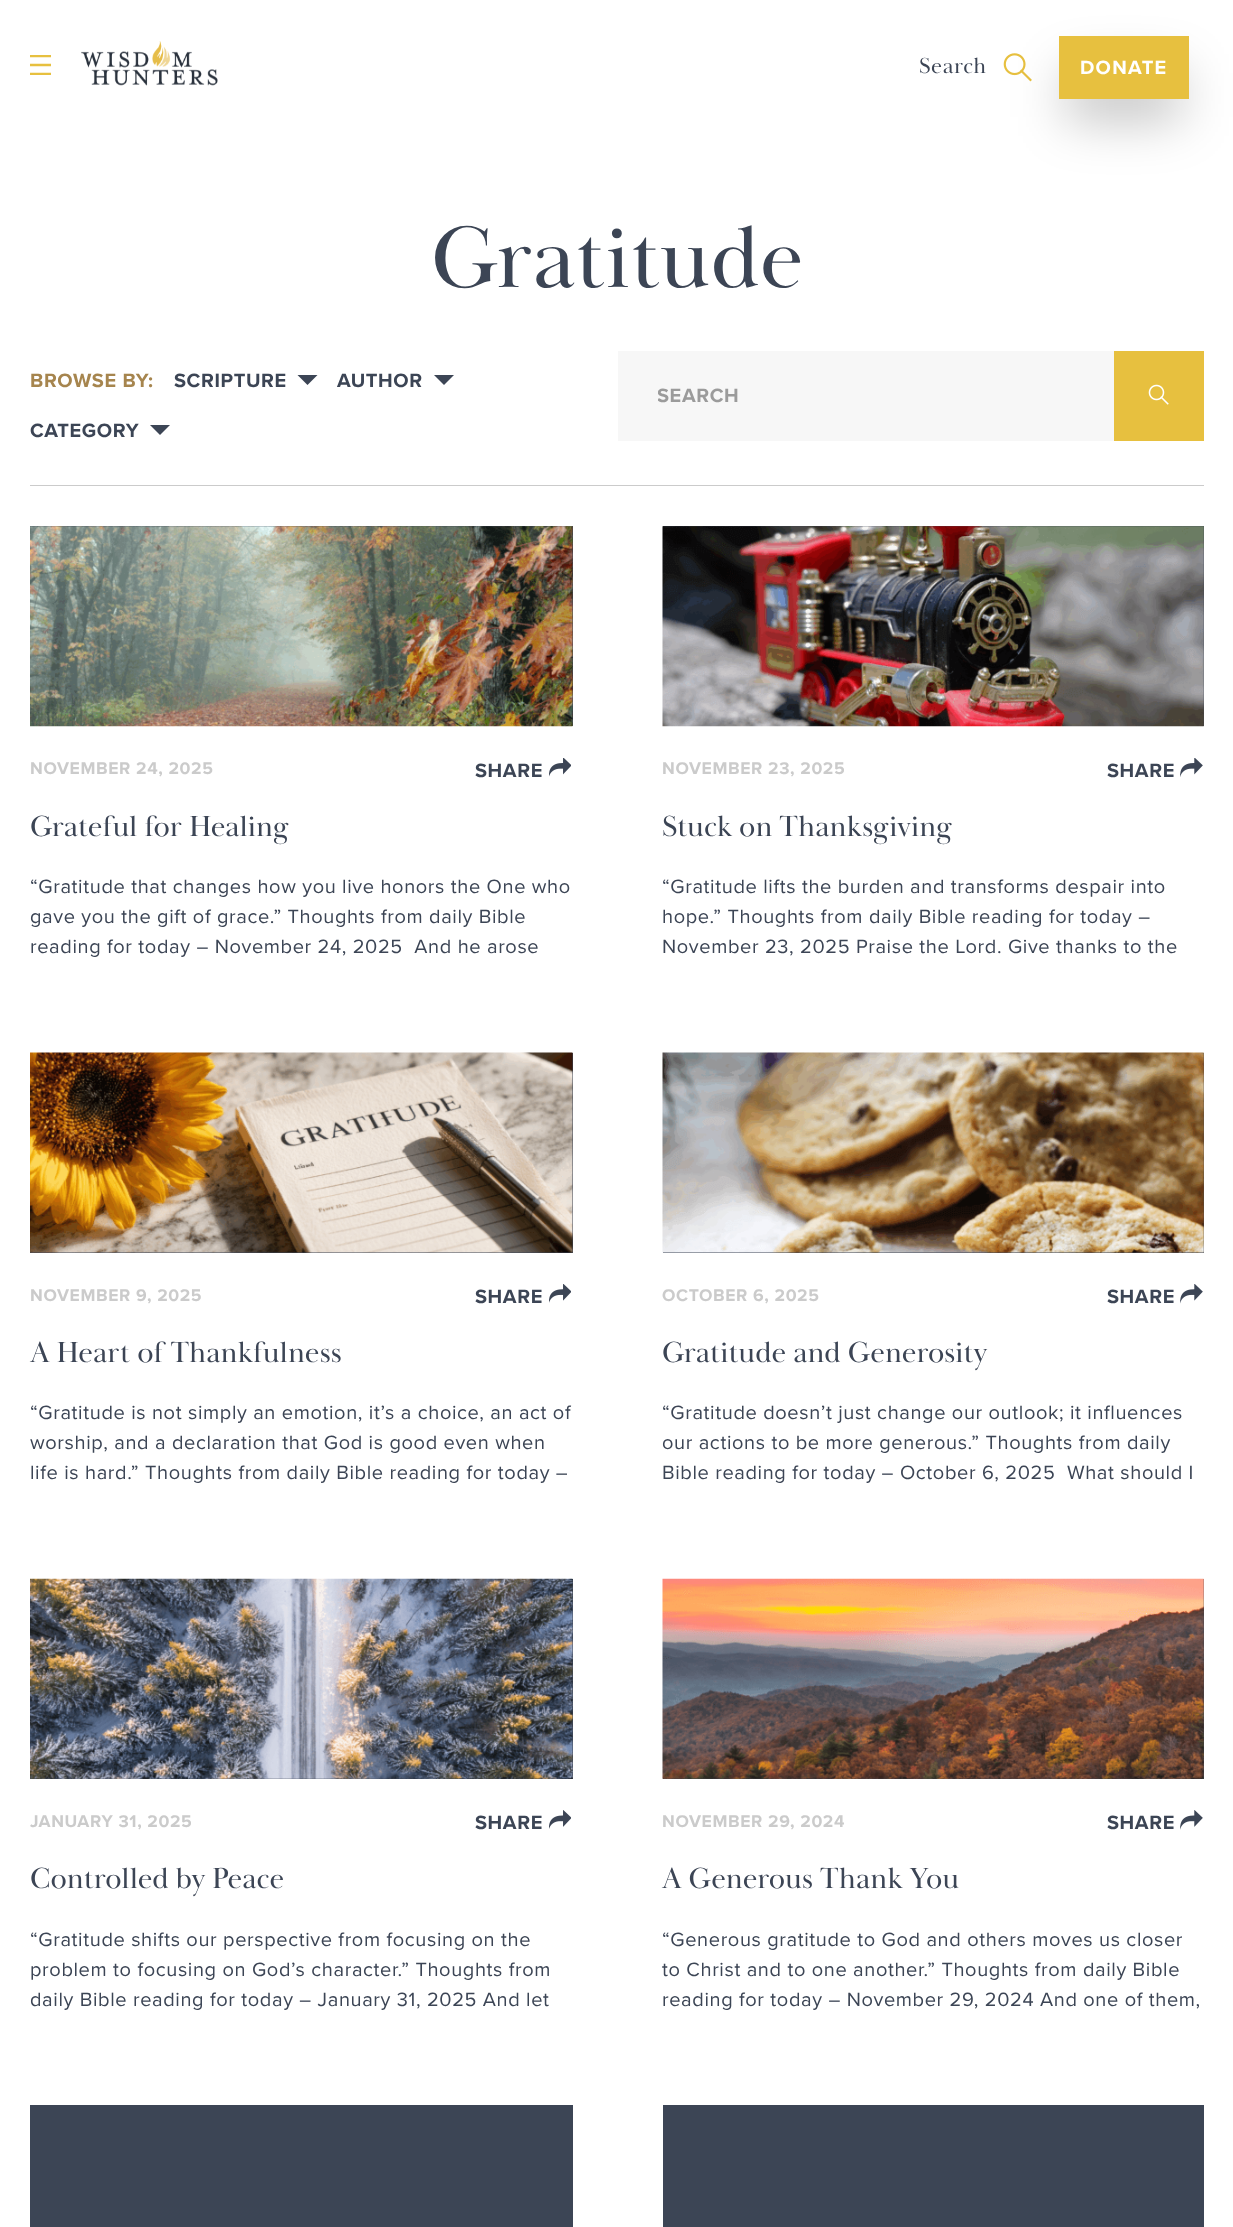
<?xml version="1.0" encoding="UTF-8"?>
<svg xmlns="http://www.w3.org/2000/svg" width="1233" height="2227">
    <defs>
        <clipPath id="clip1"><rect x="30" y="55" width="21" height="20"/></clipPath>
        <filter id="blur1" x="-50%" y="-200%" width="200%" height="500%"><feGaussianBlur stdDeviation="26"/></filter>
        <clipPath id="clip2"><rect x="658" y="384" width="456" height="25"/></clipPath>
    </defs>
    <rect width="100%" height="100%" fill="#FFFFFF"/>
    <g clip-path="url(#clip1)">
        <path d="M 31 56 H 50 M 31 65 H 50 M 31 74 H 50" fill="none" stroke="#E7C03F" stroke-width="2.5" stroke-linecap="square"/>
    </g>
    <image x="81" y="41" width="137" height="45" href="img_01.png"/>
    <text x="919" y="73" font-family="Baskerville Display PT" font-size="22.5" letter-spacing="0.62" fill="#3C4555">Search</text>
    <image x="1003" y="53" width="29" height="29" href="img_02.png"/>
    <rect x="1066" y="71" width="115" height="48" fill="#000000" fill-opacity="0.25" filter="url(#blur1)"/>
    <rect x="1059" y="36" width="130" height="63" fill="#E7C03F"/>
    <text x="1080" y="74" font-family="Proxima Nova" font-size="20" font-weight="700" letter-spacing="1.25" fill="#FFFFFF">DONATE</text>
    <text x="431" y="287" font-family="Baskerville Display PT" font-size="90" fill="#3C4555">Gratitude</text>
    <text x="30" y="387" font-family="Proxima Nova" font-size="20" font-weight="700" letter-spacing="0.62" fill="#A6854E">BROWSE BY:</text>
    <text x="174" y="387" font-family="Proxima Nova" font-size="20" font-weight="700" letter-spacing="0.62" fill="#3C4555">SCRIPTURE</text>
    <path d="M 307.5 385 L 317.5 375 H 297.5 Z" fill="#3C4555"/>
    <text x="337" y="387" font-family="Proxima Nova" font-size="20" font-weight="700" letter-spacing="0.62" fill="#3C4555">AUTHOR</text>
    <path d="M 444 385 L 454 375 H 434 Z" fill="#3C4555"/>
    <text x="30" y="437" font-family="Proxima Nova" font-size="20" font-weight="700" letter-spacing="0.62" fill="#3C4555">CATEGORY</text>
    <path d="M 160 435 L 170 425 H 150 Z" fill="#3C4555"/>
    <rect x="618" y="351" width="496" height="90" fill="#F7F7F7"/>
    <g clip-path="url(#clip2)">
        <text x="657" y="402" font-family="Proxima Nova" font-size="20" font-weight="700" letter-spacing="0.62" fill="#9B9B9B">SEARCH</text>
    </g>
    <rect x="1114" y="351" width="90" height="90" fill="#E7C03F"/>
    <image x="1148" y="384" width="21" height="21" href="img_03.png"/>
    <rect x="30" y="485" width="1174" height="1" fill="#CBCBCB"/>
    <rect x="30" y="526" width="543" height="200" fill="#3C4555"/>
    <image x="30" y="526" width="543" height="201" href="img_04.png"/>
    <text x="30" y="774" font-family="Proxima Nova" font-size="17.5" font-weight="700" letter-spacing="0.62" fill="#CBCBCB">NOVEMBER 24, 2025</text>
    <text x="475" y="777" font-family="Proxima Nova" font-size="20" font-weight="700" letter-spacing="0.62" fill="#3C4555">SHARE</text>
    <image x="549" y="758" width="22" height="19" href="img_05.png"/>
    <text x="30" y="836" font-family="Baskerville Display PT" font-size="30" fill="#3C4555">Grateful for Healing</text>
    <text font-family="Proxima Nova" font-size="20" letter-spacing="0.62" fill="#3C4555" xml:space="preserve"><tspan x="30" y="893">“Gratitude that changes how you live honors the One who</tspan><tspan x="30" y="923">gave you the gift of grace.” Thoughts from daily Bible</tspan><tspan x="30" y="953">reading for today – November 24, 2025  And he arose</tspan></text>
    <rect x="663" y="526" width="541" height="200" fill="#3C4555"/>
    <image x="662" y="526" width="542" height="201" href="img_06.png"/>
    <text x="662" y="774" font-family="Proxima Nova" font-size="17.5" font-weight="700" letter-spacing="0.62" fill="#CBCBCB">NOVEMBER 23, 2025</text>
    <text x="1107" y="777" font-family="Proxima Nova" font-size="20" font-weight="700" letter-spacing="0.62" fill="#3C4555">SHARE</text>
    <image x="1180" y="758" width="23" height="19" href="img_07.png"/>
    <text x="662" y="836" font-family="Baskerville Display PT" font-size="30" fill="#3C4555">Stuck on Thanksgiving</text>
    <text font-family="Proxima Nova" font-size="20" letter-spacing="0.62" fill="#3C4555">
        <tspan x="662" y="893">“Gratitude lifts the burden and transforms despair into</tspan>
        <tspan x="662" y="923">hope.” Thoughts from daily Bible reading for today –</tspan>
        <tspan x="662" y="953">November 23, 2025 Praise the Lord. Give thanks to the</tspan>
    </text>
    <rect x="30" y="1053" width="543" height="200" fill="#3C4555"/>
    <image x="30" y="1052" width="543" height="201" href="img_08.png"/>
    <text x="30" y="1301" font-family="Proxima Nova" font-size="17.5" font-weight="700" letter-spacing="0.62" fill="#CBCBCB">NOVEMBER 9, 2025</text>
    <text x="475" y="1303" font-family="Proxima Nova" font-size="20" font-weight="700" letter-spacing="0.62" fill="#3C4555">SHARE</text>
    <image x="549" y="1284" width="22" height="19" href="img_09.png"/>
    <text x="30" y="1362" font-family="Baskerville Display PT" font-size="30" fill="#3C4555">A Heart of Thankfulness</text>
    <text font-family="Proxima Nova" font-size="20" letter-spacing="0.62" fill="#3C4555">
        <tspan x="30" y="1419">“Gratitude is not simply an emotion, it’s a choice, an act of</tspan>
        <tspan x="30" y="1449">worship, and a declaration that God is good even when</tspan>
        <tspan x="30" y="1479">life is hard.” Thoughts from daily Bible reading for today –</tspan>
    </text>
    <rect x="663" y="1053" width="541" height="200" fill="#3C4555"/>
    <image x="662" y="1052" width="542" height="201" href="img_10.png"/>
    <text x="662" y="1301" font-family="Proxima Nova" font-size="17.5" font-weight="700" letter-spacing="0.62" fill="#CBCBCB">OCTOBER 6, 2025</text>
    <text x="1107" y="1303" font-family="Proxima Nova" font-size="20" font-weight="700" letter-spacing="0.62" fill="#3C4555">SHARE</text>
    <image x="1180" y="1284" width="23" height="20" href="img_11.png"/>
    <text x="662" y="1362" font-family="Baskerville Display PT" font-size="30" fill="#3C4555">Gratitude and Generosity</text>
    <text font-family="Proxima Nova" font-size="20" letter-spacing="0.62" fill="#3C4555" xml:space="preserve"><tspan x="662" y="1419">“Gratitude doesn’t just change our outlook; it influences</tspan><tspan x="662" y="1449">our actions to be more generous.” Thoughts from daily</tspan><tspan x="662" y="1479">Bible reading for today – October 6, 2025  What should I</tspan></text>
    <rect x="30" y="1579" width="543" height="200" fill="#3C4555"/>
    <image x="30" y="1578" width="543" height="201" href="img_12.png"/>
    <text x="30" y="1827" font-family="Proxima Nova" font-size="17.5" font-weight="700" letter-spacing="0.62" fill="#CBCBCB">JANUARY 31, 2025</text>
    <text x="475" y="1829" font-family="Proxima Nova" font-size="20" font-weight="700" letter-spacing="0.62" fill="#3C4555">SHARE</text>
    <image x="549" y="1810" width="22" height="19" href="img_13.png"/>
    <text x="30" y="1888" font-family="Baskerville Display PT" font-size="30" fill="#3C4555">Controlled by Peace</text>
    <text font-family="Proxima Nova" font-size="20" letter-spacing="0.62" fill="#3C4555">
        <tspan x="30" y="1946">“Gratitude shifts our perspective from focusing on the</tspan>
        <tspan x="30" y="1976">problem to focusing on God’s character.” Thoughts from</tspan>
        <tspan x="30" y="2006">daily Bible reading for today – January 31, 2025 And let</tspan>
    </text>
    <rect x="663" y="1579" width="541" height="200" fill="#3C4555"/>
    <image x="662" y="1578" width="542" height="201" href="img_14.png"/>
    <text x="662" y="1827" font-family="Proxima Nova" font-size="17.5" font-weight="700" letter-spacing="0.62" fill="#CBCBCB">NOVEMBER 29, 2024</text>
    <text x="1107" y="1829" font-family="Proxima Nova" font-size="20" font-weight="700" letter-spacing="0.62" fill="#3C4555">SHARE</text>
    <image x="1180" y="1810" width="23" height="20" href="img_15.png"/>
    <text x="662" y="1888" font-family="Baskerville Display PT" font-size="30" fill="#3C4555">A Generous Thank You</text>
    <text font-family="Proxima Nova" font-size="20" letter-spacing="0.62" fill="#3C4555">
        <tspan x="662" y="1946">“Generous gratitude to God and others moves us closer</tspan>
        <tspan x="662" y="1976">to Christ and to one another.” Thoughts from daily Bible</tspan>
        <tspan x="662" y="2006">reading for today – November 29, 2024 And one of them,</tspan>
    </text>
    <rect x="30" y="2105" width="543" height="122" fill="#3C4555"/>
    <rect x="663" y="2105" width="541" height="122" fill="#3C4555"/>
</svg>
